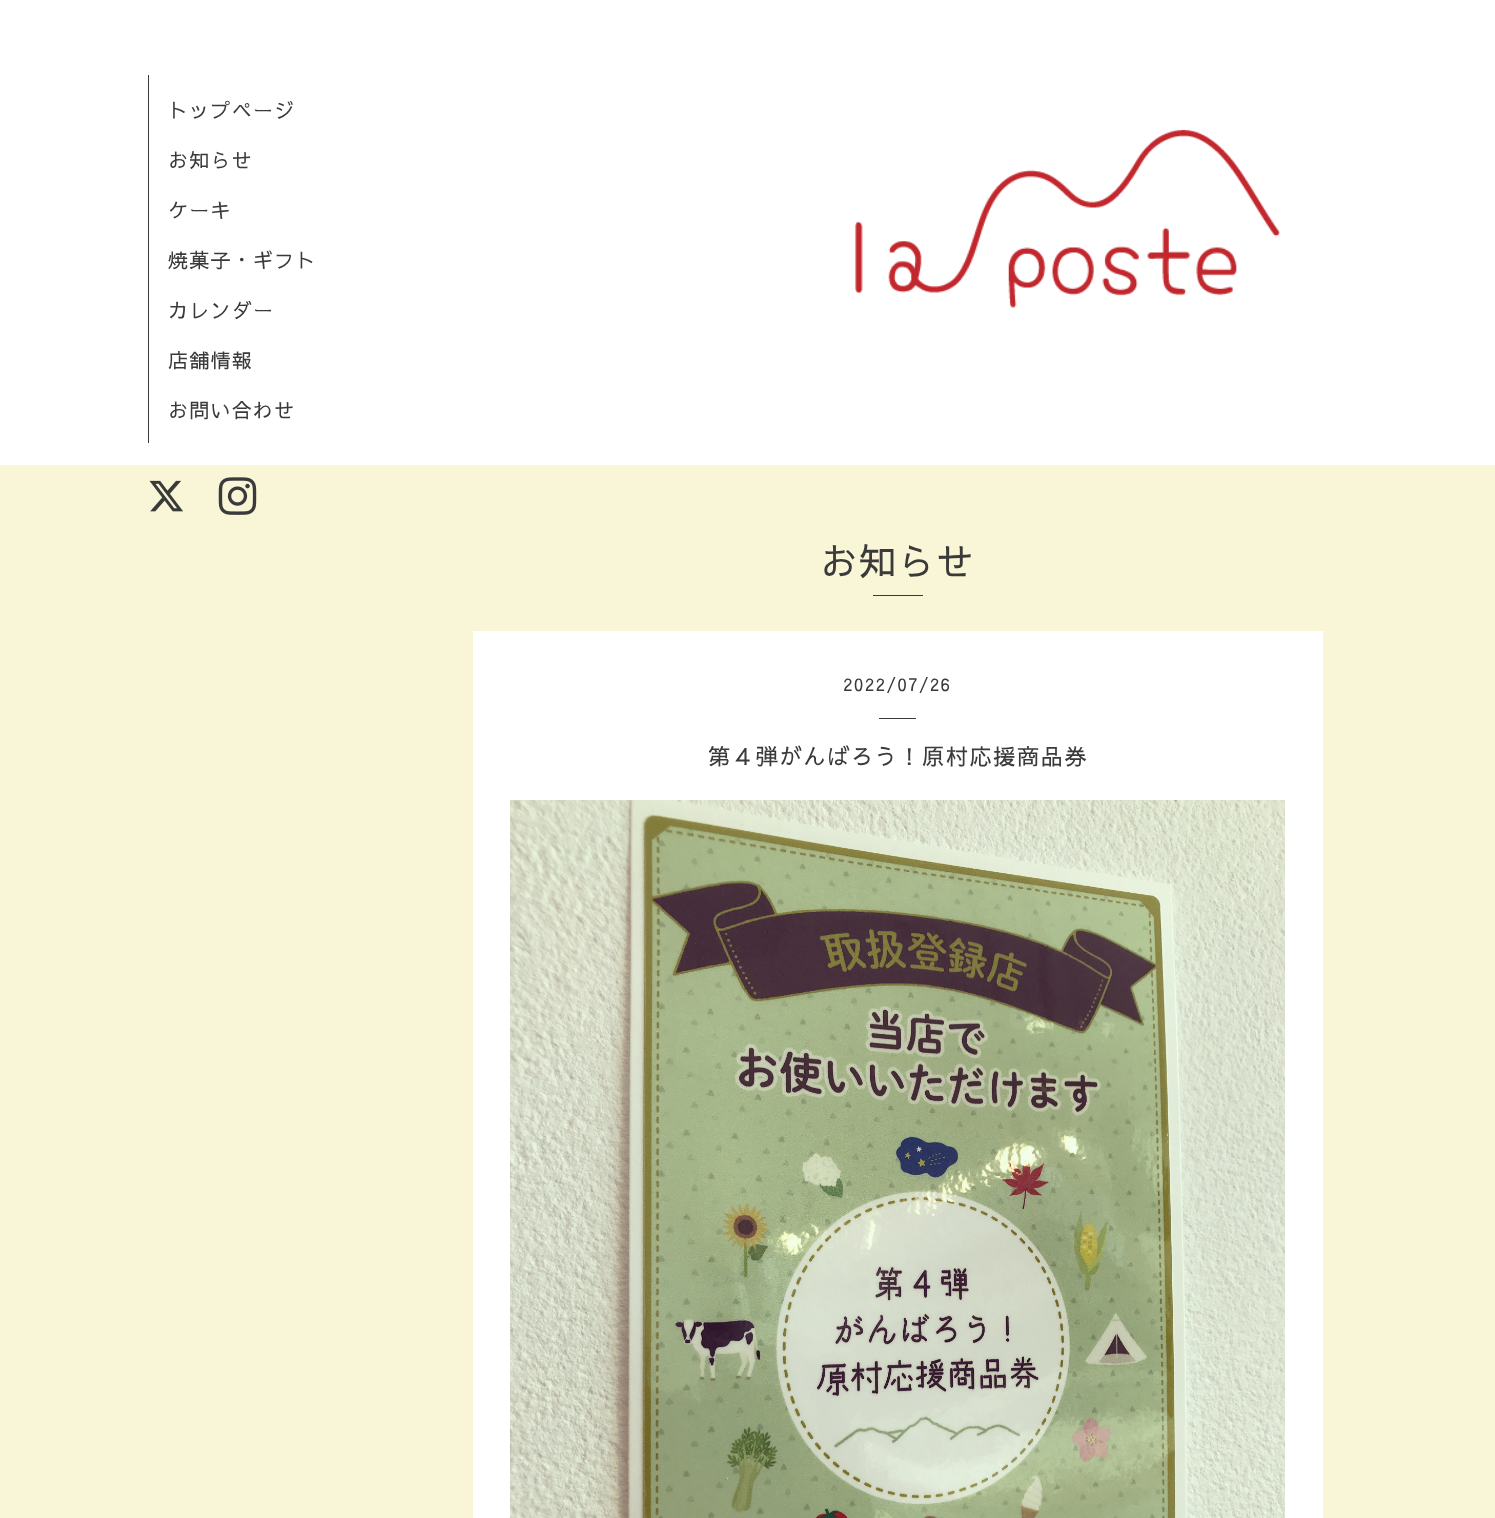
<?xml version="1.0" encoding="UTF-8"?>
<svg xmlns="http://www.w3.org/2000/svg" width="1495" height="1518">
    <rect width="100%" height="100%" fill="#FFFFFF"/>
    <rect x="148" y="75" width="1" height="368" fill="#3A3A3A"/>
    <text x="168" y="118" font-family="Sawarabi Gothic" font-size="20" letter-spacing="1.25" fill="#3A3A3A">トップページ</text>
    <text x="168" y="168" font-family="Sawarabi Gothic" font-size="20" letter-spacing="1.25" fill="#3A3A3A">お知らせ</text>
    <text x="168" y="218" font-family="Sawarabi Gothic" font-size="20" letter-spacing="1.25" fill="#3A3A3A">ケーキ</text>
    <text x="168" y="268" font-family="Sawarabi Gothic" font-size="20" letter-spacing="1.25" fill="#3A3A3A">焼菓子・ギフト</text>
    <text x="168" y="318" font-family="Sawarabi Gothic" font-size="20" letter-spacing="1.25" fill="#3A3A3A">カレンダー</text>
    <text x="168" y="368" font-family="Sawarabi Gothic" font-size="20" letter-spacing="1.25" fill="#3A3A3A">店舗情報</text>
    <text x="168" y="418" font-family="Sawarabi Gothic" font-size="20" letter-spacing="1.25" fill="#3A3A3A">お問い合わせ</text>
    <rect x="0" y="465" width="1495" height="1053" fill="#F9F6D7"/>
    <image x="149" y="480" width="34" height="32" href="img_01.png"/>
    <image x="218" y="477" width="39" height="38" href="img_02.png"/>
    <image x="854" y="129" width="427" height="179" href="img_03.png"/>
    <text x="820" y="576" font-family="Sawarabi Gothic" font-size="37.5" letter-spacing="1.25" fill="#3A3A3A">お知らせ</text>
    <rect x="873" y="595" width="50" height="1" fill="#3A3A3A"/>
    <rect x="473" y="631" width="850" height="887" fill="#FFFFFF"/>
    <text x="843" y="691" font-family="Sawarabi Gothic" font-size="17.5" letter-spacing="1.25" fill="#3A3A3A">2022/07/26</text>
    <rect x="879" y="718" width="37" height="1" fill="#3A3A3A"/>
    <text x="708" y="765" font-family="Sawarabi Gothic" font-size="22.5" letter-spacing="1.25" fill="#3A3A3A">第４弾がんばろう！原村応援商品券</text>
    <image x="510" y="800" width="775" height="718" href="img_04.png"/>
</svg>
